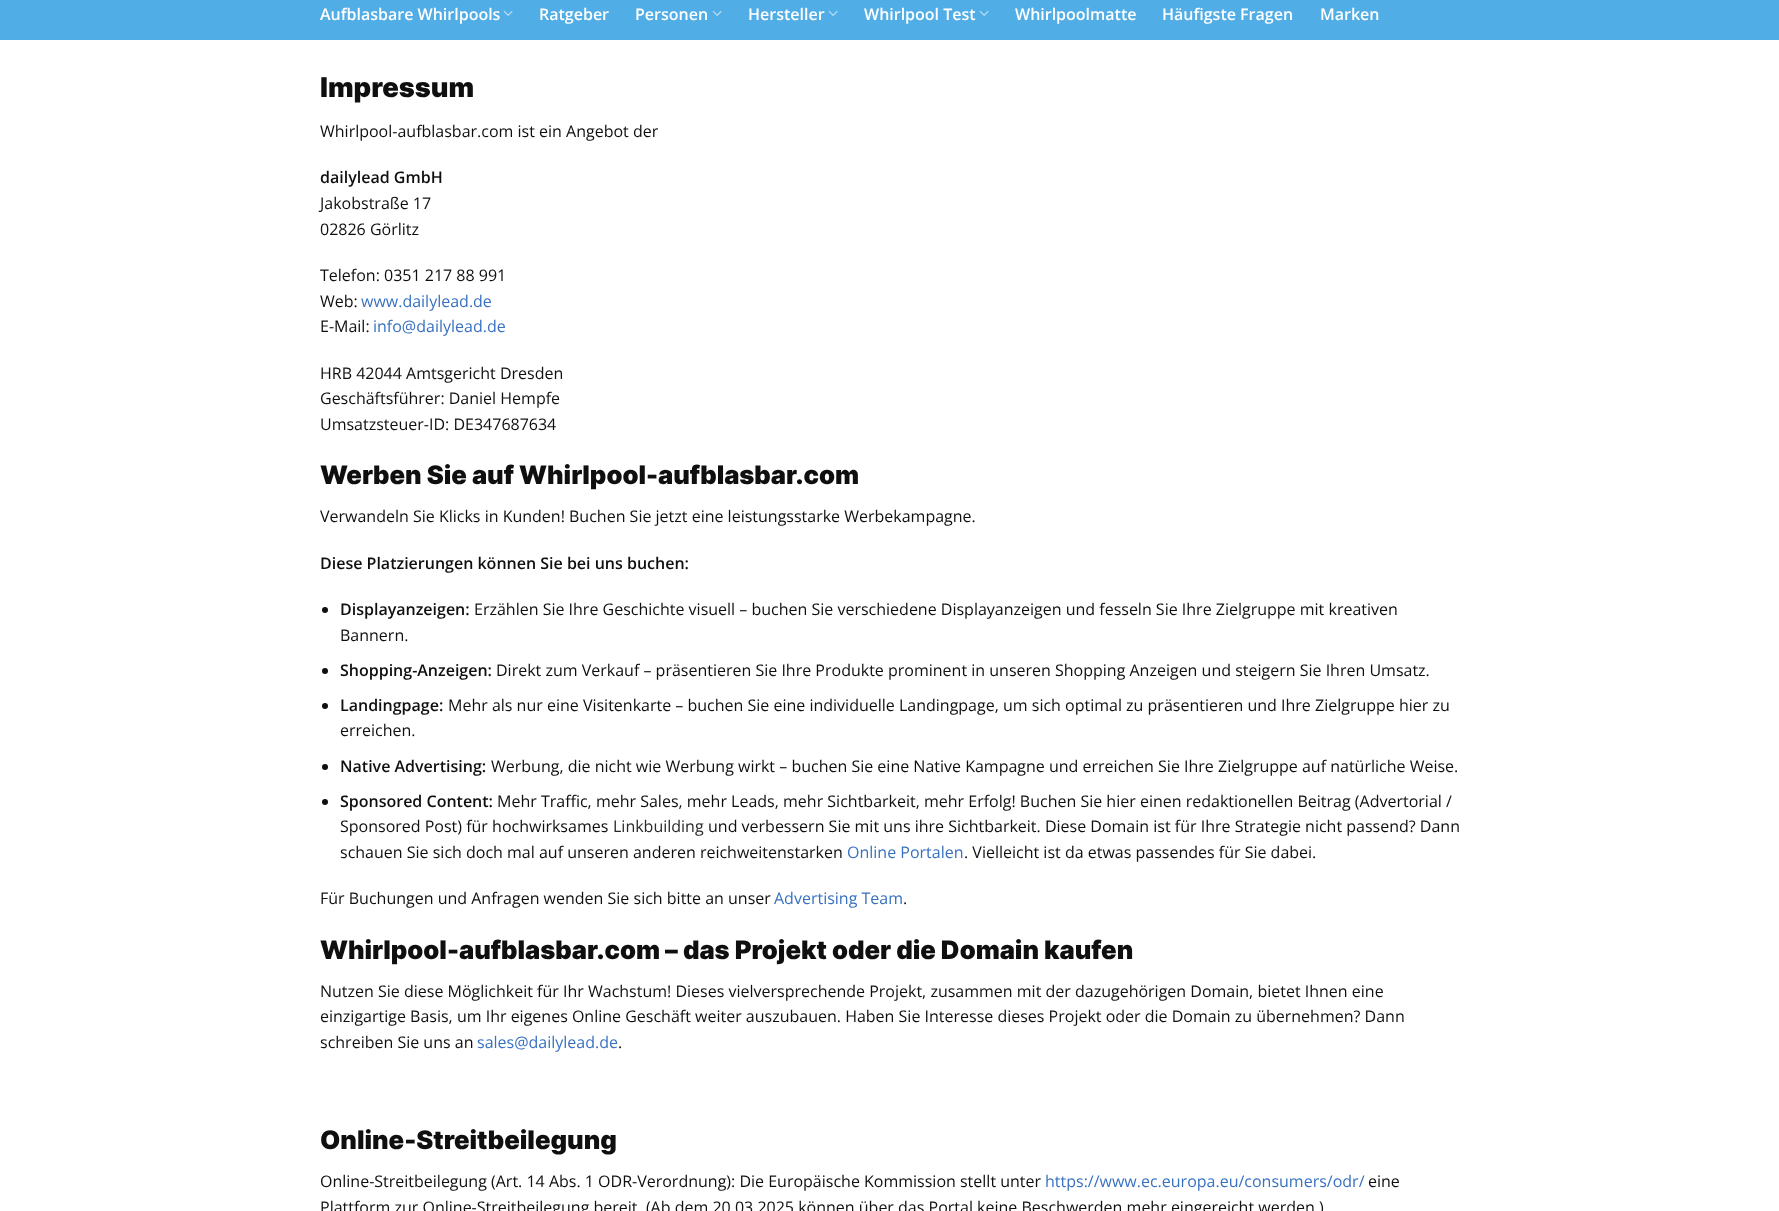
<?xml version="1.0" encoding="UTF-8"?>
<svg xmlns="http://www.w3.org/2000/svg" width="1779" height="1211">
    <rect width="100%" height="100%" fill="#FFFFFF"/>
    <rect x="0" y="0" width="1779" height="40" fill="#51ADE5"/>
    <text x="320" y="20" font-family="Open Sans" font-size="16" font-weight="600" fill="#FFFFFF">Aufblasbare Whirlpools</text>
    <image x="503" y="10" width="10" height="6" href="img_01.png"/>
    <text x="539" y="20" font-family="Open Sans" font-size="16" font-weight="600" fill="#FFFFFF">Ratgeber</text>
    <text x="635" y="20" font-family="Open Sans" font-size="16" font-weight="600" fill="#FFFFFF">Personen</text>
    <image x="712" y="10" width="10" height="6" href="img_01.png"/>
    <text x="748" y="20" font-family="Open Sans" font-size="16" font-weight="600" fill="#FFFFFF">Hersteller</text>
    <image x="828" y="10" width="10" height="6" href="img_01.png"/>
    <text x="864" y="20" font-family="Open Sans" font-size="16" font-weight="600" fill="#FFFFFF">Whirlpool Test</text>
    <image x="979" y="10" width="10" height="6" href="img_01.png"/>
    <text x="1015" y="20" font-family="Open Sans" font-size="16" font-weight="600" fill="#FFFFFF">Whirlpoolmatte</text>
    <text x="1162" y="20" font-family="Open Sans" font-size="16" font-weight="600" fill="#FFFFFF">Häufigste Fragen</text>
    <text x="1320" y="20" font-family="Open Sans" font-size="16" font-weight="600" fill="#FFFFFF">Marken</text>
    <text x="320" y="97" font-family="Inter" font-size="27.25" font-weight="900" fill="#0F0F0F">Impressum</text>
    <text x="320" y="137" font-family="Open Sans" font-size="16" fill="#0F0F0F">Whirlpool-aufblasbar.com ist ein Angebot der</text>
    <text x="320" y="183" font-family="Open Sans" font-size="16" font-weight="600" fill="#0F0F0F">dailylead GmbH</text>
    <text font-family="Open Sans" font-size="16" fill="#0F0F0F">
        <tspan x="320" y="209">Jakobstraße 17</tspan>
        <tspan x="320" y="235">02826 Görlitz</tspan>
    </text>
    <text font-family="Open Sans" font-size="16" fill="#0F0F0F">
        <tspan x="320" y="281">Telefon: 0351 217 88 991</tspan>
        <tspan x="320" y="307">Web:</tspan>
    </text>
    <text x="361" y="307" font-family="Open Sans" font-size="16" fill="#3871C1">www.dailylead.de</text>
    <text x="320" y="332" font-family="Open Sans" font-size="16" fill="#0F0F0F">E-Mail:</text>
    <text x="373" y="332" font-family="Open Sans" font-size="16" fill="#3871C1">info@dailylead.de</text>
    <text font-family="Open Sans" font-size="16" fill="#0F0F0F">
        <tspan x="320" y="379">HRB 42044 Amtsgericht Dresden</tspan>
        <tspan x="320" y="404">Geschäftsführer: Daniel Hempfe</tspan>
        <tspan x="320" y="430">Umsatzsteuer-ID: DE347687634</tspan>
    </text>
    <text x="320" y="484" font-family="Inter" font-size="25.6" font-weight="900" fill="#0F0F0F">Werben Sie auf Whirlpool-aufblasbar.com</text>
    <text x="320" y="522" font-family="Open Sans" font-size="16" fill="#0F0F0F">Verwandeln Sie Klicks in Kunden! Buchen Sie jetzt eine leistungsstarke Werbekampagne.</text>
    <text x="320" y="569" font-family="Open Sans" font-size="16" font-weight="600" fill="#0F0F0F">Diese Platzierungen können Sie bei uns buchen:</text>
    <circle cx="325" cy="610" r="3" fill="#0F0F0F"/>
    <text x="340" y="615" font-family="Open Sans" font-size="16" font-weight="600" fill="#0F0F0F">Displayanzeigen:</text>
    <text x="474" y="615" font-family="Open Sans" font-size="16" fill="#0F0F0F">Erzählen Sie Ihre Geschichte visuell – buchen Sie verschiedene Displayanzeigen und fesseln Sie Ihre Zielgruppe mit kreativen</text>
    <text x="340" y="641" font-family="Open Sans" font-size="16" fill="#0F0F0F">Bannern.</text>
    <circle cx="325" cy="671" r="3" fill="#0F0F0F"/>
    <text x="340" y="676" font-family="Open Sans" font-size="16" font-weight="600" fill="#0F0F0F">Shopping-Anzeigen:</text>
    <text x="496" y="676" font-family="Open Sans" font-size="16" fill="#0F0F0F">Direkt zum Verkauf – präsentieren Sie Ihre Produkte prominent in unseren Shopping Anzeigen und steigern Sie Ihren Umsatz.</text>
    <circle cx="325" cy="706" r="3" fill="#0F0F0F"/>
    <text x="340" y="711" font-family="Open Sans" font-size="16" font-weight="600" fill="#0F0F0F">Landingpage:</text>
    <text x="448" y="711" font-family="Open Sans" font-size="16" fill="#0F0F0F">Mehr als nur eine Visitenkarte – buchen Sie eine individuelle Landingpage, um sich optimal zu präsentieren und Ihre Zielgruppe hier zu</text>
    <text x="340" y="736" font-family="Open Sans" font-size="16" fill="#0F0F0F">erreichen.</text>
    <circle cx="325" cy="767" r="3" fill="#0F0F0F"/>
    <text x="340" y="772" font-family="Open Sans" font-size="16" font-weight="600" fill="#0F0F0F">Native Advertising:</text>
    <text x="491" y="772" font-family="Open Sans" font-size="16" fill="#0F0F0F">Werbung, die nicht wie Werbung wirkt – buchen Sie eine Native Kampagne und erreichen Sie Ihre Zielgruppe auf natürliche Weise.</text>
    <circle cx="325" cy="802" r="3" fill="#0F0F0F"/>
    <text x="340" y="807" font-family="Open Sans" font-size="16" font-weight="600" fill="#0F0F0F">Sponsored Content:</text>
    <text x="497" y="807" font-family="Open Sans" font-size="16" fill="#0F0F0F">Mehr Traffic, mehr Sales, mehr Leads, mehr Sichtbarkeit, mehr Erfolg! Buchen Sie hier einen redaktionellen Beitrag (Advertorial /</text>
    <text x="340" y="832" font-family="Open Sans" font-size="16" fill="#0F0F0F">Sponsored Post) für hochwirksames</text>
    <text x="613" y="832" font-family="Open Sans" font-size="16" fill="#282828">Linkbuilding</text>
    <text x="708" y="832" font-family="Open Sans" font-size="16" fill="#0F0F0F">und verbessern Sie mit uns ihre Sichtbarkeit. Diese Domain ist für Ihre Strategie nicht passend? Dann</text>
    <text x="340" y="858" font-family="Open Sans" font-size="16" fill="#0F0F0F">schauen Sie sich doch mal auf unseren anderen reichweitenstarken</text>
    <text x="847" y="858" font-family="Open Sans" font-size="16" fill="#3871C1">Online Portalen</text>
    <text x="964" y="858" font-family="Open Sans" font-size="16" fill="#0F0F0F">. Vielleicht ist da etwas passendes für Sie dabei.</text>
    <text x="320" y="904" font-family="Open Sans" font-size="16" fill="#0F0F0F">Für Buchungen und Anfragen wenden Sie sich bitte an unser</text>
    <text x="774" y="904" font-family="Open Sans" font-size="16" fill="#3871C1">Advertising Team</text>
    <text x="903" y="904" font-family="Open Sans" font-size="16" fill="#0F0F0F">.</text>
    <text x="320" y="959" font-family="Inter" font-size="25.6" font-weight="900" fill="#0F0F0F">Whirlpool-aufblasbar.com – das Projekt oder die Domain kaufen</text>
    <text font-family="Open Sans" font-size="16" fill="#0F0F0F">
        <tspan x="320" y="997">Nutzen Sie diese Möglichkeit für Ihr Wachstum! Dieses vielversprechende Projekt, zusammen mit der dazugehörigen Domain, bietet Ihnen eine</tspan>
        <tspan x="320" y="1022">einzigartige Basis, um Ihr eigenes Online Geschäft weiter auszubauen. Haben Sie Interesse dieses Projekt oder die Domain zu übernehmen? Dann</tspan>
        <tspan x="320" y="1048">schreiben Sie uns an</tspan>
    </text>
    <text x="477" y="1048" font-family="Open Sans" font-size="16" fill="#3871C1">sales@dailylead.de</text>
    <text x="618" y="1048" font-family="Open Sans" font-size="16" fill="#0F0F0F">.</text>
    <text x="320" y="1149" font-family="Inter" font-size="25.6" font-weight="900" fill="#0F0F0F">Online-Streitbeilegung</text>
    <text x="320" y="1187" font-family="Open Sans" font-size="16" fill="#0F0F0F">Online-Streitbeilegung (Art. 14 Abs. 1 ODR-Verordnung): Die Europäische Kommission stellt unter</text>
    <text x="1045" y="1187" font-family="Open Sans" font-size="16" fill="#3871C1">https://www.ec.europa.eu/consumers/odr/</text>
    <text x="1368" y="1187" font-family="Open Sans" font-size="16" fill="#0F0F0F">eine</text>
    <text x="320" y="1213" font-family="Open Sans" font-size="16" fill="#0F0F0F">Plattform zur Online-Streitbeilegung bereit. (Ab dem 20.03.2025 können über das Portal keine Beschwerden mehr eingereicht werden.)</text>
</svg>
